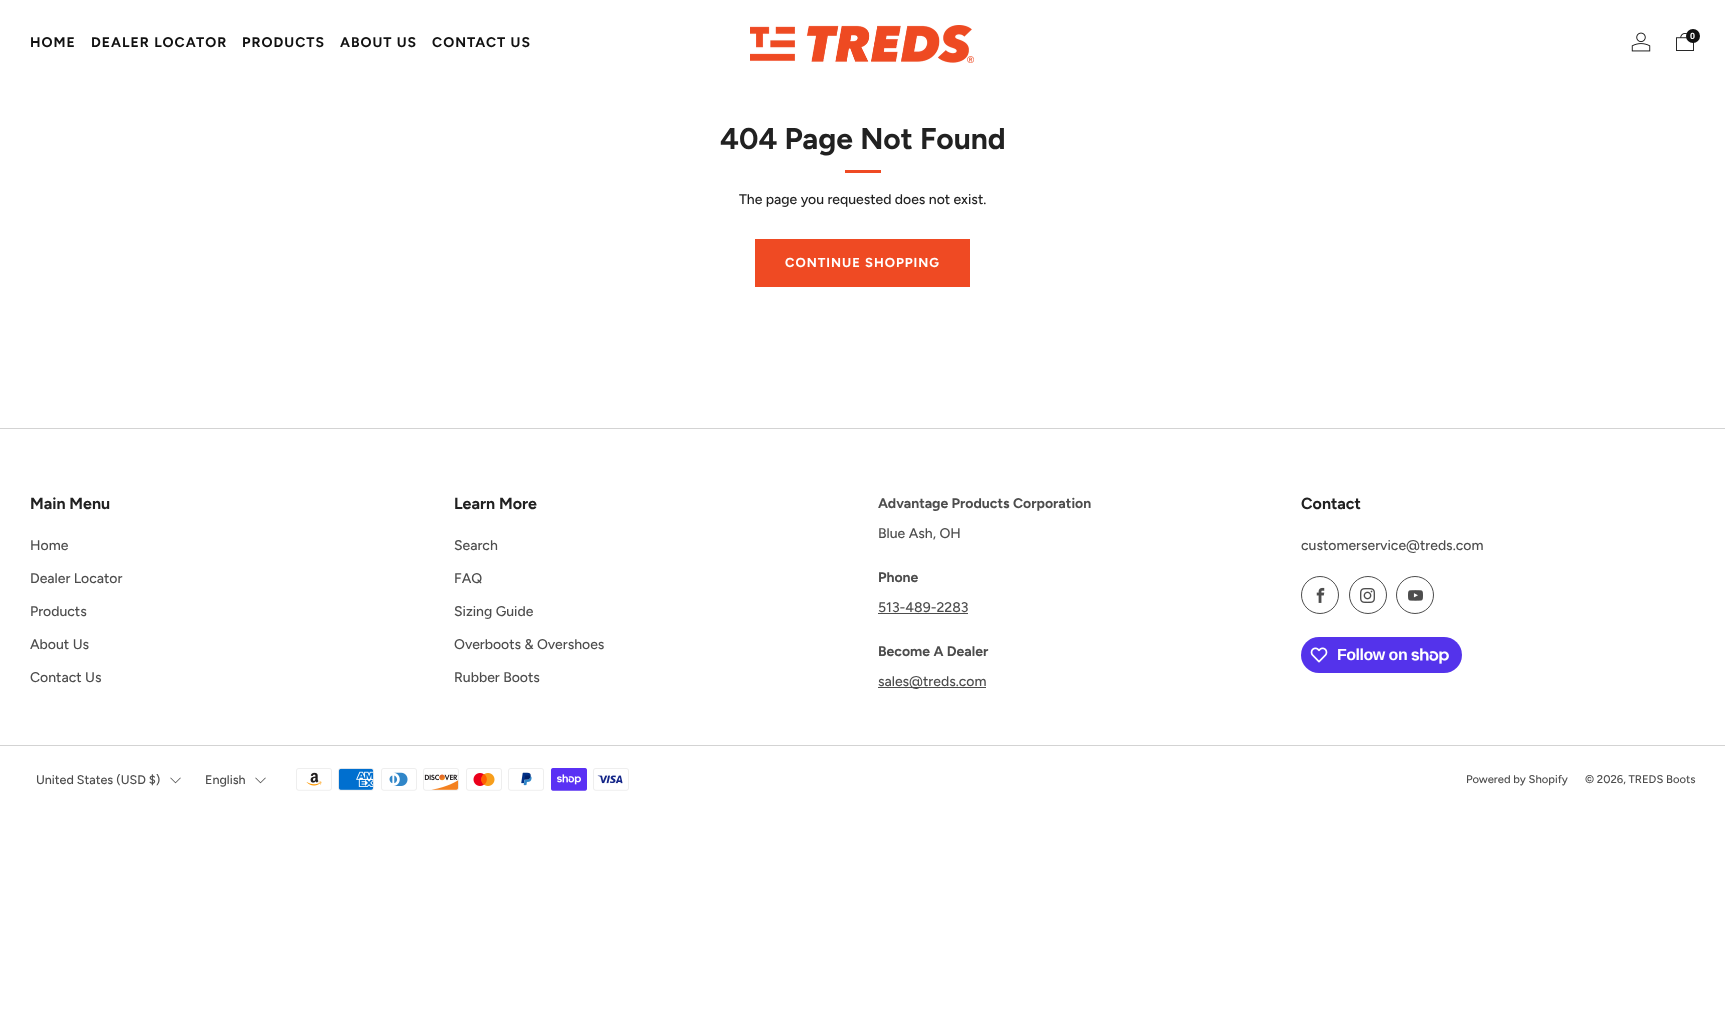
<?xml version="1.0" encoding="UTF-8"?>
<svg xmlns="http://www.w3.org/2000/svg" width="1725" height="1036">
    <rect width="100%" height="100%" fill="#FFFFFF"/>
    <image x="750" y="25" width="224" height="38" href="img_01.png"/>
    <image x="1631" y="32" width="20" height="20" href="img_02.png"/>
    <image x="1676" y="33" width="18" height="18" href="img_03.png"/>
    <circle cx="1693" cy="36" r="7" fill="#111111"/>
    <text x="1690" y="39" font-family="Liberation Sans" font-size="9" font-weight="700" fill="#FFFFFF">0</text>
    <text x="30" y="47" font-family="Figtree" font-size="14" font-weight="700" letter-spacing="1" fill="#111111">HOME</text>
    <text x="91" y="47" font-family="Figtree" font-size="14" font-weight="700" letter-spacing="1" fill="#111111">DEALER LOCATOR</text>
    <text x="242" y="47" font-family="Figtree" font-size="14" font-weight="700" letter-spacing="1" fill="#111111">PRODUCTS</text>
    <text x="340" y="47" font-family="Figtree" font-size="14" font-weight="700" letter-spacing="1" fill="#111111">ABOUT US</text>
    <text x="432" y="47" font-family="Figtree" font-size="14" font-weight="700" letter-spacing="1" fill="#111111">CONTACT US</text>
    <text x="720" y="149" font-family="Figtree" font-size="30" font-weight="700" fill="#212121">404 Page Not Found</text>
    <rect x="845" y="170" width="36" height="3" fill="#EF4A23"/>
    <text x="739" y="204" font-family="Figtree" font-size="14" font-weight="500" fill="#212121">The page you requested does not exist.</text>
    <rect x="755" y="239" width="215" height="48" fill="#EF4A23"/>
    <text x="785" y="267" font-family="Figtree" font-size="13" font-weight="700" letter-spacing="1" fill="#FFFFFF">CONTINUE SHOPPING</text>
    <rect x="0" y="428" width="1725" height="1" fill="#D3D3D3"/>
    <text x="30" y="509" font-family="Figtree" font-size="16" font-weight="700" fill="#212121">Main Menu</text>
    <text x="30" y="550" font-family="Figtree" font-size="14" font-weight="500" fill="#4D4D4D">Home</text>
    <text x="30" y="583" font-family="Figtree" font-size="14" font-weight="500" fill="#4D4D4D">Dealer Locator</text>
    <text x="30" y="616" font-family="Figtree" font-size="14" font-weight="500" fill="#4D4D4D">Products</text>
    <text x="30" y="649" font-family="Figtree" font-size="14" font-weight="500" fill="#4D4D4D">About Us</text>
    <text x="30" y="682" font-family="Figtree" font-size="14" font-weight="500" fill="#4D4D4D">Contact Us</text>
    <text x="454" y="509" font-family="Figtree" font-size="16" font-weight="700" fill="#212121">Learn More</text>
    <text x="454" y="550" font-family="Figtree" font-size="14" font-weight="500" fill="#4D4D4D">Search</text>
    <text x="454" y="583" font-family="Figtree" font-size="14" font-weight="500" fill="#4D4D4D">FAQ</text>
    <text x="454" y="616" font-family="Figtree" font-size="14" font-weight="500" fill="#4D4D4D">Sizing Guide</text>
    <text x="454" y="649" font-family="Figtree" font-size="14" font-weight="500" fill="#4D4D4D">Overboots &amp; Overshoes</text>
    <text x="454" y="682" font-family="Figtree" font-size="14" font-weight="500" fill="#4D4D4D">Rubber Boots</text>
    <text x="878" y="508" font-family="Figtree" font-size="14" font-weight="700" fill="#4D4D4D">Advantage Products Corporation</text>
    <text x="878" y="538" font-family="Figtree" font-size="14" font-weight="500" fill="#4D4D4D">Blue Ash, OH</text>
    <text x="878" y="582" font-family="Figtree" font-size="14" font-weight="700" fill="#4D4D4D">Phone</text>
    <text x="878" y="612" font-family="Figtree" font-size="14" font-weight="500" fill="#4D4D4D">513-489-2283</text>
    <rect x="878" y="613" width="90" height="1" fill="#4D4D4D"/>
    <text x="878" y="656" font-family="Figtree" font-size="14" font-weight="700" fill="#4D4D4D">Become A Dealer</text>
    <rect x="878" y="687" width="108" height="1" fill="#4D4D4D"/>
    <text x="878" y="686" font-family="Figtree" font-size="14" font-weight="500" fill="#4D4D4D">sales@treds.com</text>
    <text x="1301" y="509" font-family="Figtree" font-size="16" font-weight="700" fill="#212121">Contact</text>
    <text x="1301" y="550" font-family="Figtree" font-size="14" font-weight="500" fill="#4D4D4D">customerservice@treds.com</text>
    <circle cx="1320" cy="595" r="18.5" fill="none" stroke="#4D4D4D"/>
    <image x="1316" y="587" width="9" height="16" href="img_04.png"/>
    <circle cx="1368" cy="595" r="18.5" fill="none" stroke="#4D4D4D"/>
    <image x="1360" y="588" width="15" height="15" href="img_05.png"/>
    <circle cx="1415" cy="595" r="18.5" fill="none" stroke="#4D4D4D"/>
    <image x="1408" y="590" width="15" height="11" href="img_06.png"/>
    <rect x="1301" y="637" width="161" height="36" rx="18" fill="#5433EB"/>
    <image x="1310" y="647" width="18" height="16" href="img_07.png"/>
    <text x="1337" y="660" font-family="Liberation Sans" font-size="16" font-weight="700" letter-spacing="-0.5" fill="#FFFFFF">Follow on</text>
    <image x="1411" y="648" width="38" height="16" href="img_08.png"/>
    <rect x="0" y="745" width="1725" height="1" fill="#D3D3D3"/>
    <text x="36" y="784" font-family="Figtree" font-size="12.5" font-weight="500" fill="#4D4D4D">United States (USD $)</text>
    <image x="170" y="777" width="11" height="7" href="img_09.png"/>
    <text x="205" y="784" font-family="Figtree" font-size="12.5" font-weight="500" fill="#4D4D4D">English</text>
    <image x="255" y="777" width="11" height="7" href="img_09.png"/>
    <image x="296" y="768" width="36" height="23" href="img_10.png"/>
    <image x="338" y="768" width="36" height="23" href="img_11.png"/>
    <image x="381" y="768" width="36" height="23" href="img_12.png"/>
    <image x="423" y="768" width="36" height="23" href="img_13.png"/>
    <image x="466" y="768" width="36" height="23" href="img_14.png"/>
    <image x="508" y="768" width="36" height="23" href="img_15.png"/>
    <image x="551" y="768" width="36" height="23" href="img_16.png"/>
    <image x="593" y="768" width="36" height="23" href="img_17.png"/>
    <text x="1466" y="783" font-family="Figtree" font-size="11.25" font-weight="500" fill="#4D4D4D">Powered by Shopify</text>
    <text x="1585" y="783" font-family="Figtree" font-size="11.25" font-weight="500" fill="#4D4D4D">© 2026, TREDS Boots</text>
</svg>
